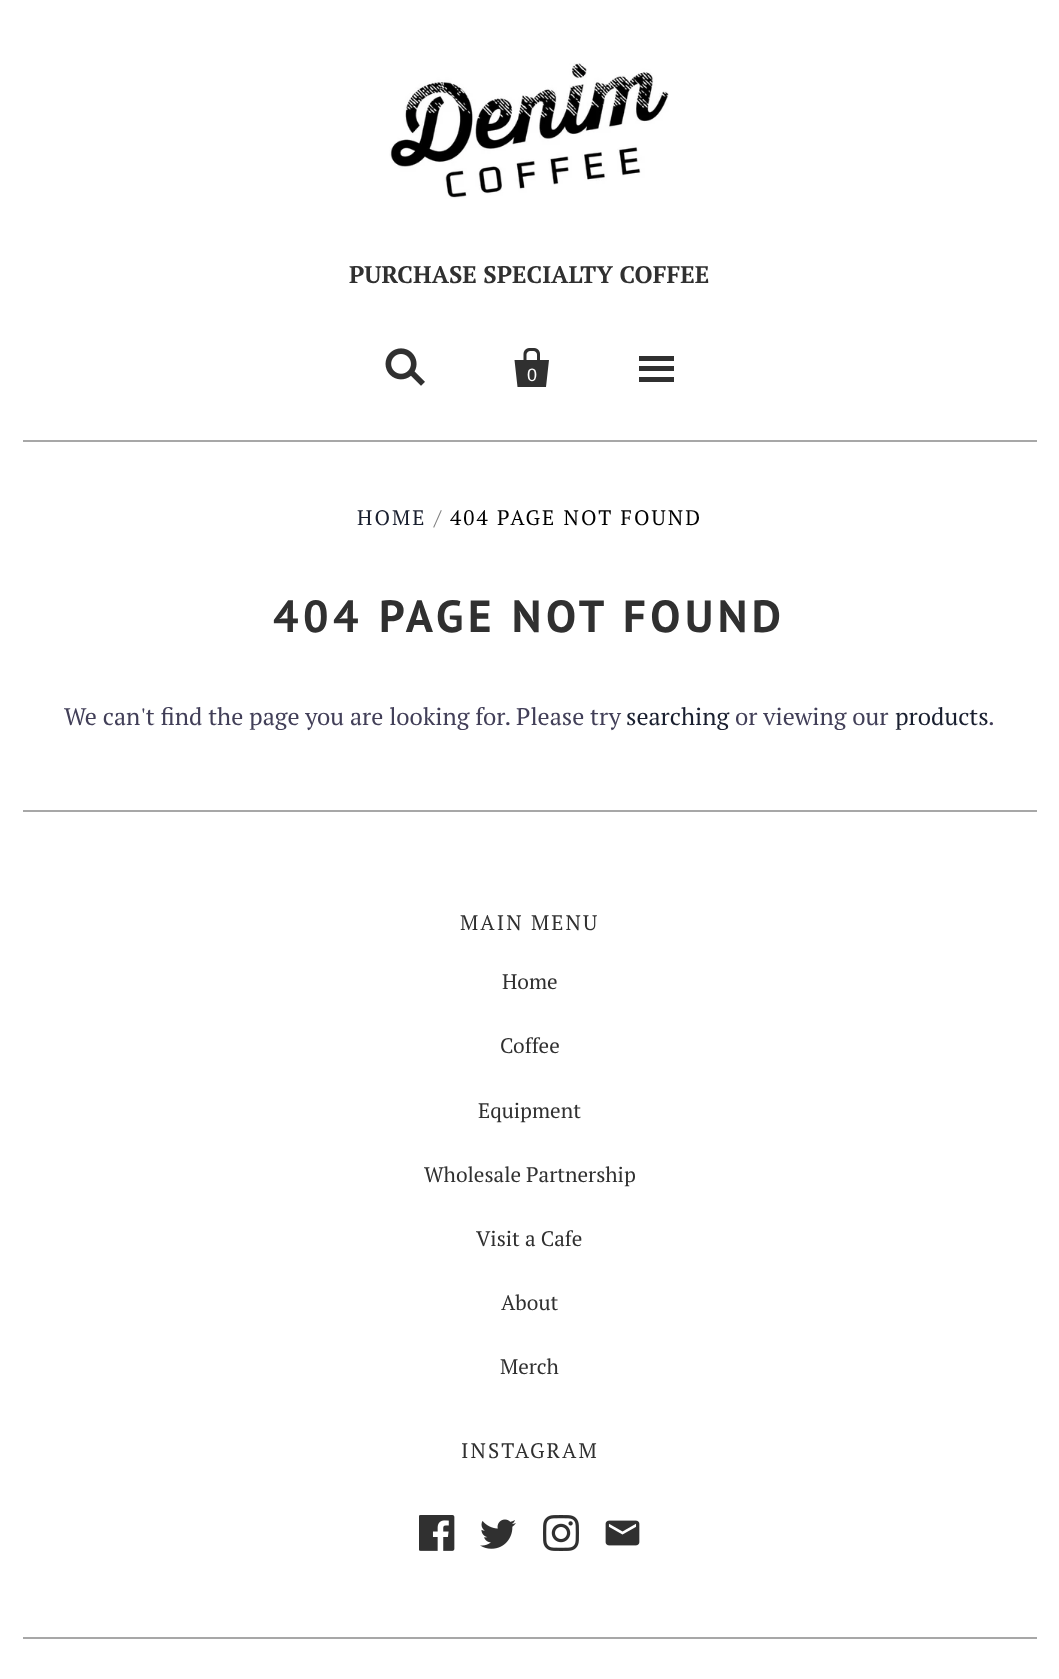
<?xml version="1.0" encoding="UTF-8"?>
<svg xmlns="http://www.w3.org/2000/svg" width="1059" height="1679">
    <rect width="100%" height="100%" fill="#FFFFFF"/>
    <rect x="23" y="440" width="1014" height="2" fill="#A7A7A7"/>
    <image x="389" y="63" width="280" height="136" href="img_01.png"/>
    <text x="349" y="283" font-family="PT Serif" font-size="24" font-weight="700" fill="#303030">PURCHASE SPECIALTY COFFEE</text>
    <image x="385" y="348" width="40" height="38" href="img_02.png"/>
    <image x="514" y="348" width="35" height="39" href="img_03.png"/>
    <text x="527" y="381" font-family="Liberation Sans" font-size="18" fill="#FFFFFF">0</text>
    <rect x="639" y="366" width="35" height="5" fill="#303030"/>
    <rect x="639" y="356" width="35" height="5" fill="#303030"/>
    <rect x="639" y="377" width="35" height="5" fill="#303030"/>
    <text x="357" y="525" font-family="PT Serif" font-size="21" letter-spacing="2.1" fill="#191F2F">HOME</text>
    <text x="434" y="525" font-family="PT Serif" font-size="21" letter-spacing="2.1" fill="#7F7F7F">/</text>
    <text x="450" y="525" font-family="PT Serif" font-size="21" letter-spacing="2.1" fill="#000000">404 PAGE NOT FOUND</text>
    <text x="273" y="632" font-family="PT Sans" font-size="45" font-weight="700" letter-spacing="4.5" fill="#303030">404 PAGE NOT FOUND</text>
    <text x="64" y="725" font-family="PT Serif" font-size="24" fill="#423F58">We can't find the page you are looking for. Please try</text>
    <text x="626" y="725" font-family="PT Serif" font-size="24" fill="#191F2F">searching</text>
    <text x="735" y="725" font-family="PT Serif" font-size="24" fill="#423F58">or viewing our</text>
    <text x="895" y="725" font-family="PT Serif" font-size="24" fill="#191F2F">products</text>
    <text x="988" y="725" font-family="PT Serif" font-size="24" fill="#423F58">.</text>
    <rect x="23" y="810" width="1014" height="2" fill="#A7A7A7"/>
    <text x="460" y="930" font-family="PT Serif" font-size="21" letter-spacing="2.1" fill="#303030">MAIN MENU</text>
    <text x="502" y="989" font-family="PT Serif" font-size="21" fill="#303030">Home</text>
    <text x="500" y="1053" font-family="PT Serif" font-size="21" fill="#303030">Coffee</text>
    <text x="478" y="1118" font-family="PT Serif" font-size="21" fill="#303030">Equipment</text>
    <text x="424" y="1182" font-family="PT Serif" font-size="21" fill="#303030">Wholesale Partnership</text>
    <text x="476" y="1246" font-family="PT Serif" font-size="21" fill="#303030">Visit a Cafe</text>
    <text x="501" y="1310" font-family="PT Serif" font-size="21" fill="#303030">About</text>
    <text x="500" y="1374" font-family="PT Serif" font-size="21" fill="#303030">Merch</text>
    <text x="461" y="1458" font-family="PT Serif" font-size="21" letter-spacing="2.1" fill="#303030">INSTAGRAM</text>
    <image x="419" y="1515" width="36" height="36" href="img_04.png"/>
    <image x="480" y="1519" width="36" height="30" href="img_05.png"/>
    <image x="543" y="1515" width="36" height="36" href="img_06.png"/>
    <image x="605" y="1520" width="35" height="26" href="img_07.png"/>
    <rect x="23" y="1637" width="1014" height="2" fill="#A7A7A7"/>
</svg>
